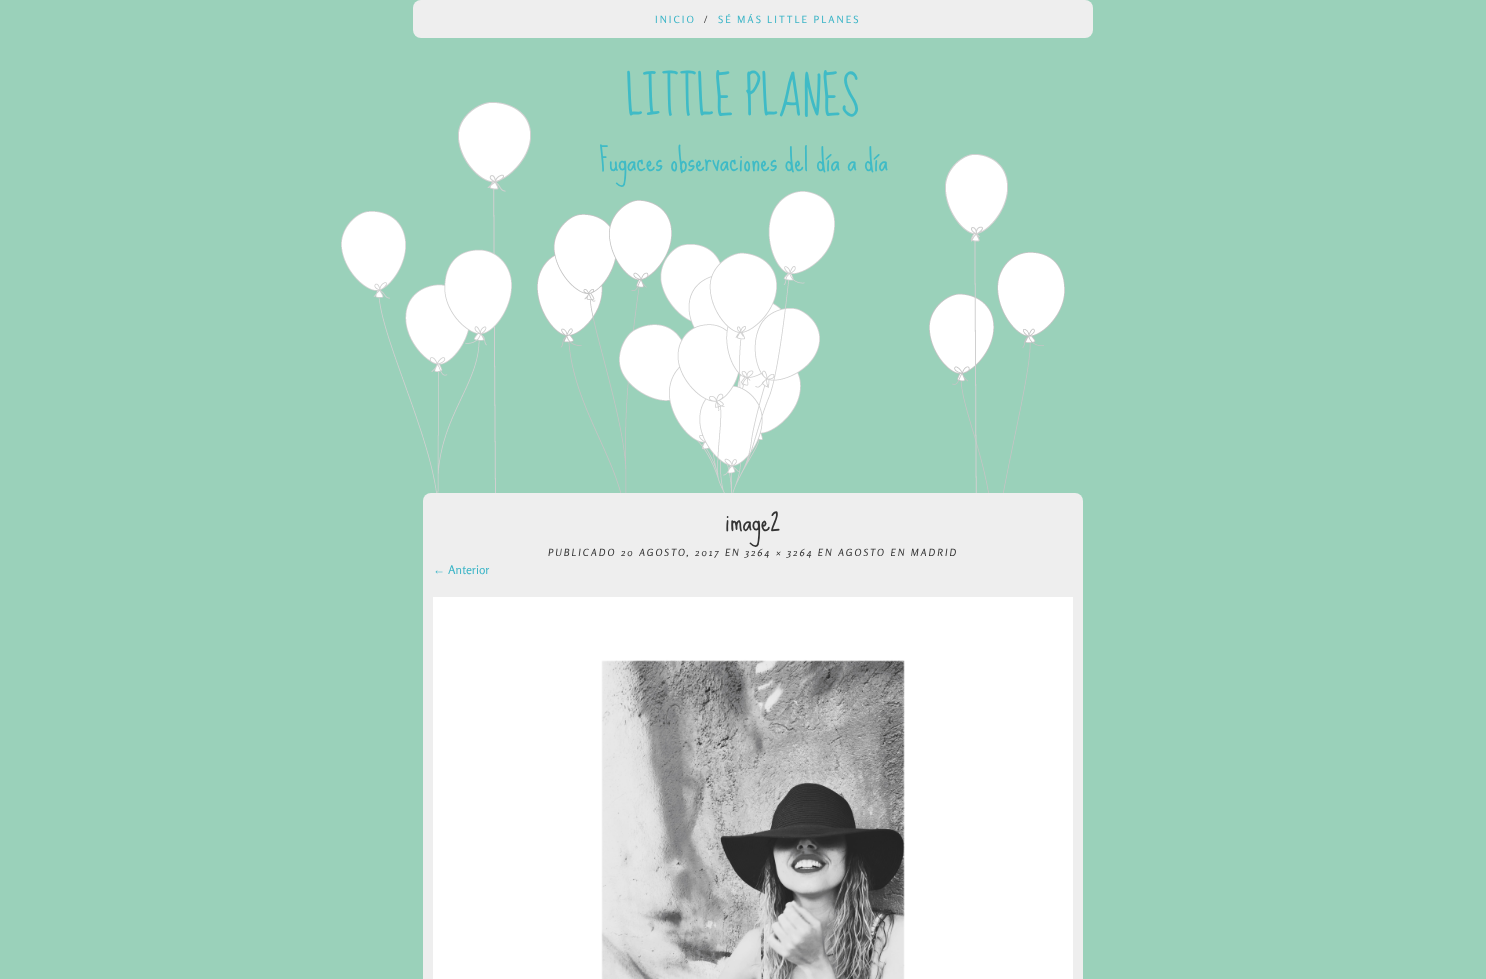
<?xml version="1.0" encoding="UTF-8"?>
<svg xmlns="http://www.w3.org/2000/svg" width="1486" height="979">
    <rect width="100%" height="100%" fill="#9AD1BA"/>
    <rect x="413" y="0" width="680" height="38" rx="8" fill="#EEEEEE"/>
    <text x="655" y="23" font-family="Rosario" font-size="10" letter-spacing="2" fill="#3CB5C7">INICIO</text>
    <text x="704" y="23" font-family="Rosario" font-size="10" letter-spacing="2" fill="#333333">/</text>
    <text x="718" y="23" font-family="Rosario" font-size="10" letter-spacing="2" fill="#3CB5C7">SÉ MÁS LITTLE PLANES</text>
    <text x="626" y="115" font-family="Sue Ellen Francisco" font-size="48" fill="#3FBBC6">LITTLE PLANES</text>
    <text x="599" y="171" font-family="Sue Ellen Francisco" font-size="30" fill="#3FBBC6">Fugaces observaciones del día a día</text>
    <rect x="423" y="493" width="660" height="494" rx="8" fill="#EEEEEE"/>
    <text x="725" y="531" font-family="Sue Ellen Francisco" font-size="30" fill="#333333">image2</text>
    <text x="548" y="556" font-family="Rosario" font-size="10" font-style="italic" letter-spacing="2" fill="#333333">PUBLICADO 20 AGOSTO, 2017 EN 3264 × 3264 EN AGOSTO EN MADRID</text>
    <text x="433" y="574" font-family="Liberation Sans" font-size="12" fill="#3CB5C7">←</text>
    <text x="448" y="574" font-family="Rosario" font-size="12" fill="#3CB5C7">Anterior</text>
    <image x="433" y="597" width="640" height="382" href="img_01.png"/>
    <image x="458" y="102" width="73" height="391" href="img_02.png"/>
    <image x="537" y="200" width="135" height="293" href="img_03.png"/>
    <image x="619" y="191" width="216" height="302" href="img_04.png"/>
    <image x="929" y="252" width="136" height="241" href="img_07.png"/>
    <image x="945" y="154" width="63" height="339" href="img_05.png"/>
    <image x="341" y="211" width="171" height="282" href="img_06.png"/>
</svg>
